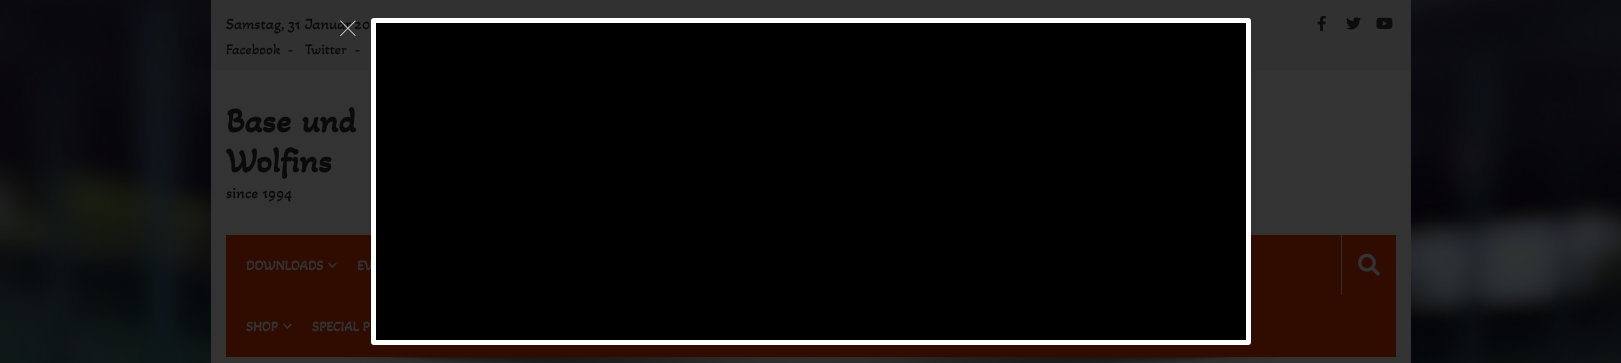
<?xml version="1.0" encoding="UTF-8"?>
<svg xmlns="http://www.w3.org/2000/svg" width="1621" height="363">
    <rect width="100%" height="100%" fill="#FFFFFF"/>
    <image x="0" y="0" width="1621" height="363" href="img_01.png"/>
    <rect x="211" y="71" width="1200" height="292" fill="#333333"/>
    <rect x="211" y="0" width="1200" height="71" fill="#313131"/>
    <text x="226" y="29" font-family="Akaya Kanadaka" font-size="16" fill="#0A0A0A">Samstag, 31 Januar 20</text>
    <text x="226" y="54" font-family="Akaya Kanadaka" font-size="15" fill="#0A0A0A">Facebook</text>
    <text x="288" y="54" font-family="Akaya Kanadaka" font-size="15" fill="#0A0A0A">-</text>
    <text x="305" y="54" font-family="Akaya Kanadaka" font-size="15" fill="#0A0A0A">Twitter</text>
    <text x="355" y="54" font-family="Akaya Kanadaka" font-size="15" fill="#0A0A0A">-</text>
    <image x="1317" y="15" width="9" height="16" href="img_02.png"/>
    <image x="1346" y="17" width="15" height="13" href="img_03.png"/>
    <image x="1376" y="17" width="17" height="12" href="img_04.png"/>
    <text font-family="Akaya Telivigala" font-size="35" font-weight="700" fill="#0A0A0A">
        <tspan x="226" y="132">Base und</tspan>
        <tspan x="226" y="172">Wolfins</tspan>
    </text>
    <text x="226" y="198" font-family="Akaya Kanadaka" font-size="16" fill="#0A0A0A">since 1994</text>
    <rect x="226" y="235" width="1170" height="122" fill="#300B00"/>
    <text x="246" y="270" font-family="Akaya Kanadaka" font-size="14" font-weight="700" fill="#333333">DOWNLOADS</text>
    <image x="328" y="262" width="9" height="6" href="img_05.png"/>
    <text x="357" y="270" font-family="Akaya Kanadaka" font-size="14" font-weight="700" fill="#333333">EV</text>
    <text x="246" y="331" font-family="Akaya Kanadaka" font-size="14" font-weight="700" fill="#333333">SHOP</text>
    <image x="283" y="323" width="9" height="6" href="img_05.png"/>
    <text x="312" y="331" font-family="Akaya Kanadaka" font-size="14" font-weight="700" fill="#333333">SPECIAL P</text>
    <rect x="1341" y="235" width="1" height="60" fill="#2E2E2E"/>
    <image x="1358" y="253" width="22" height="23" href="img_06.png"/>
    <image x="344" y="357" width="933" height="6" href="img_07.png"/>
    <image x="340" y="20" width="16" height="16" href="img_08.png"/>
    <rect x="373.5" y="20.5" width="875" height="322" rx="0.5" fill="#000000" stroke="#FFFFFF" stroke-width="5"/>
</svg>
